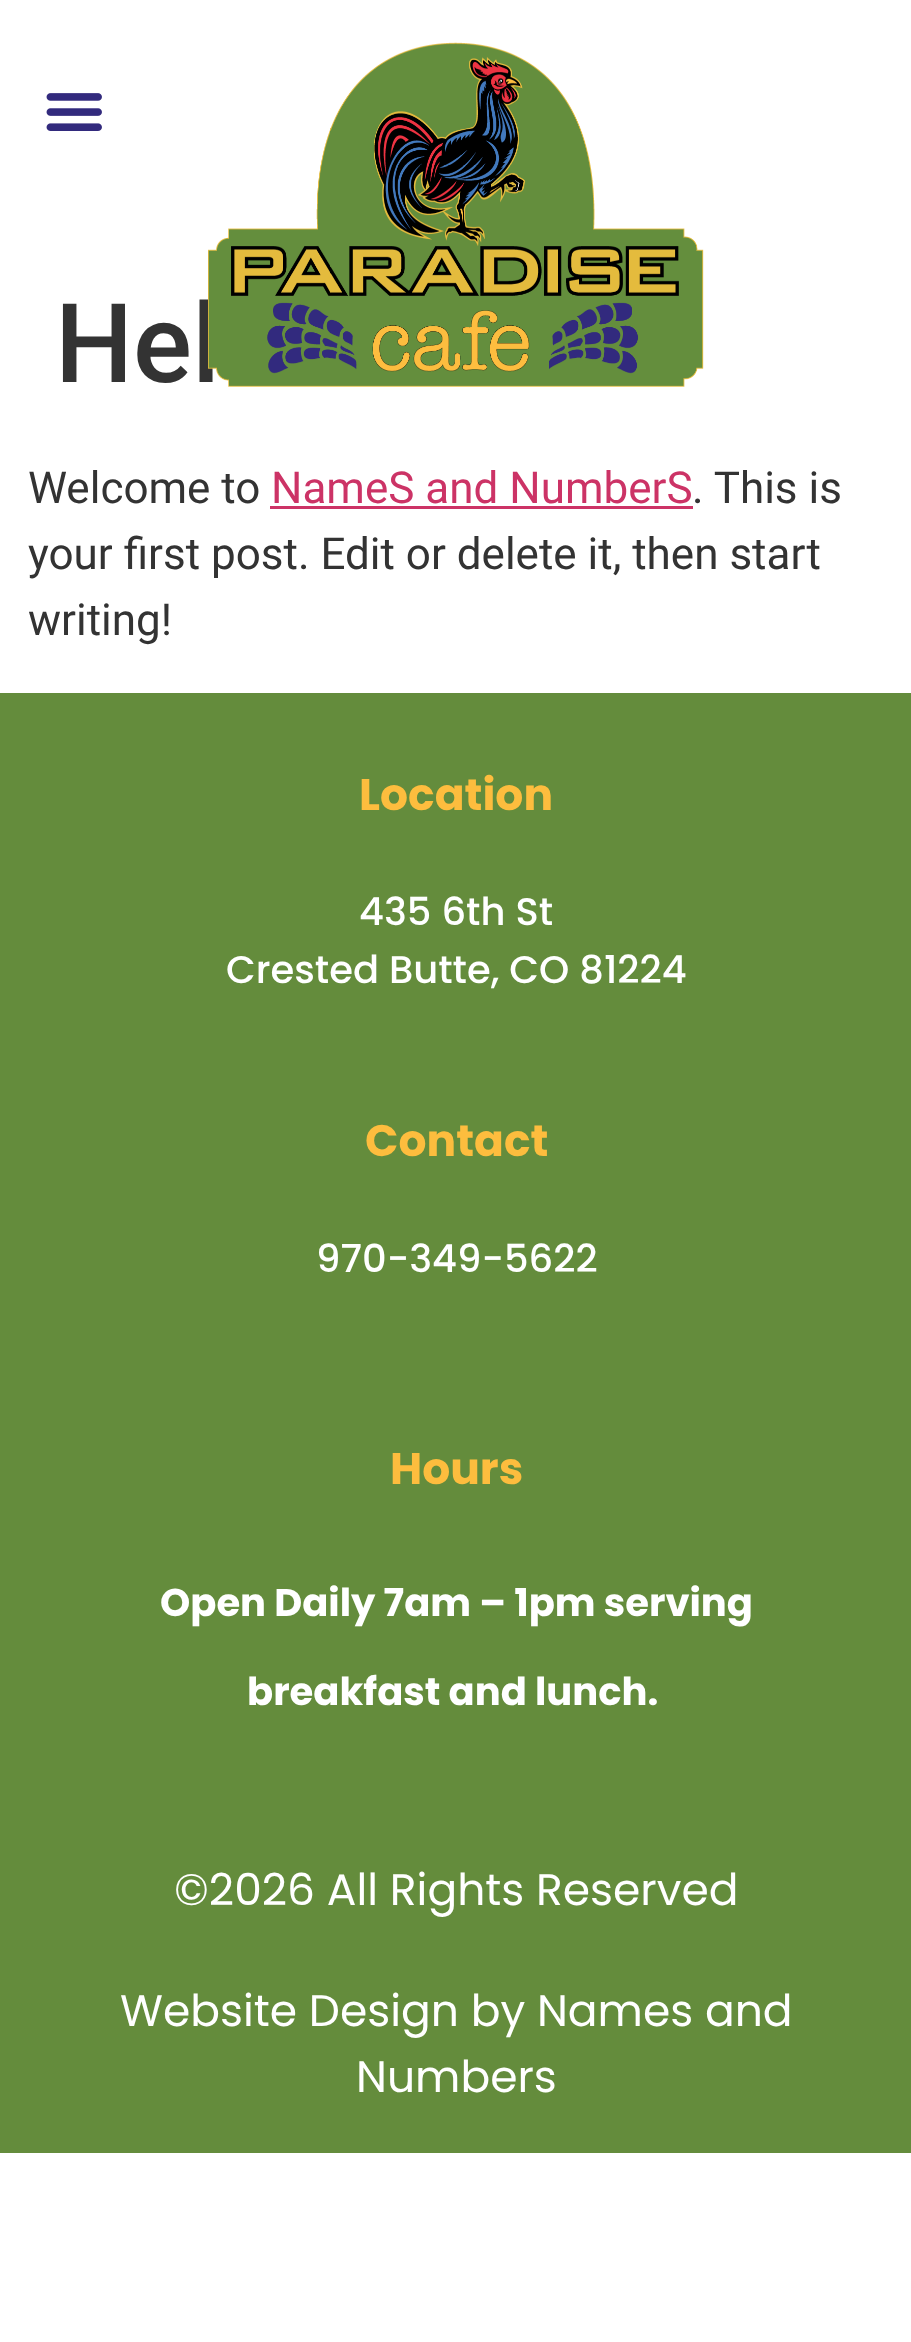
<?xml version="1.0" encoding="UTF-8"?>
<svg xmlns="http://www.w3.org/2000/svg" width="911" height="2342">
    <rect width="100%" height="100%" fill="#FFFFFF"/>
    <image x="46" y="93" width="56" height="38" href="img_01.png"/>
    <text x="55" y="382" font-family="Roboto" font-size="110" font-weight="500" fill="#333333">Hel</text>
    <image x="208" y="42" width="496" height="345" href="img_02.png"/>
    <text x="28" y="503" font-family="Roboto" font-size="44" fill="#333333">Welcome to</text>
    <text x="271" y="503" font-family="Roboto" font-size="44" fill="#CC3366">NameS and NumberS</text>
    <rect x="270" y="506" width="423" height="3" fill="#CC3366"/>
    <text x="692" y="503" font-family="Roboto" font-size="44" fill="#333333">. This is</text>
    <text font-family="Roboto" font-size="44" fill="#333333">
        <tspan x="28" y="569">your first post. Edit or delete it, then start</tspan>
        <tspan x="28" y="635">writing!</tspan>
    </text>
    <rect x="0" y="693" width="911" height="1460" fill="#648C3C"/>
    <text x="359" y="810" font-family="Poppins" font-size="44" font-weight="700" fill="#FDBD3E">Location</text>
    <text x="359" y="925" font-family="Poppins" font-size="38.5" font-weight="500" fill="#FFFFFF">435 6th St</text>
    <text x="226" y="983" font-family="Poppins" font-size="38.5" font-weight="500" fill="#FFFFFF">Crested Butte, CO 81224</text>
    <text x="365" y="1156" font-family="Poppins" font-size="44" font-weight="700" fill="#FDBD3E">Contact</text>
    <text x="316" y="1272" font-family="Poppins" font-size="38.5" font-weight="500" fill="#FFFFFF">970-349-5622</text>
    <text x="390" y="1484" font-family="Poppins" font-size="44" font-weight="700" fill="#FDBD3E">Hours</text>
    <text x="160" y="1616" font-family="Poppins" font-size="38.5" font-weight="700" fill="#FFFFFF">Open Daily 7am – 1pm serving</text>
    <text x="247" y="1705" font-family="Poppins" font-size="38.5" font-weight="700" fill="#FFFFFF">breakfast and lunch.</text>
    <text x="174" y="1905" font-family="Poppins" font-size="44" fill="#FFFFFF">©2026 All Rights Reserved</text>
    <text x="120" y="2026" font-family="Poppins" font-size="44" fill="#FFFFFF">Website Design by Names and</text>
    <text x="356" y="2092" font-family="Poppins" font-size="44" fill="#FFFFFF">Numbers</text>
</svg>
